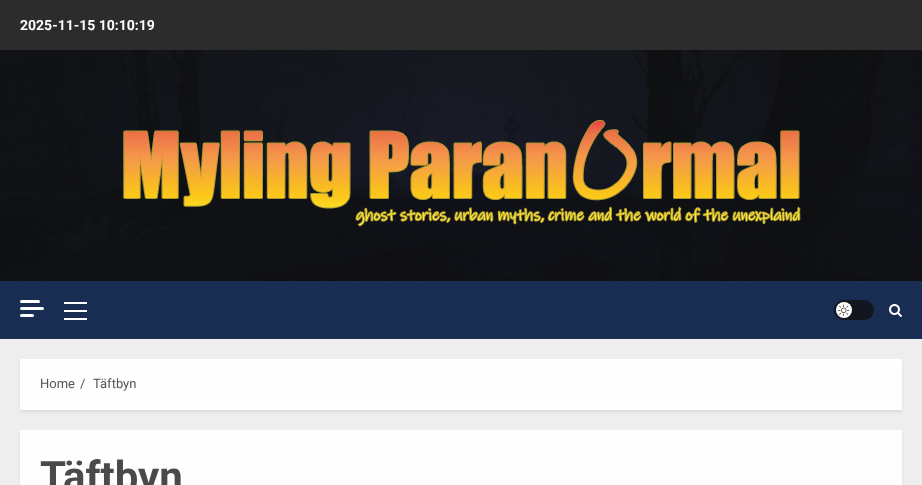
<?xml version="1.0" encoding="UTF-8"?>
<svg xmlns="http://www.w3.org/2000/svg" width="922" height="485">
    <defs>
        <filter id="blur1" x="-50%" y="-200%" width="200%" height="500%"><feGaussianBlur stdDeviation="1"/></filter>
    </defs>
    <rect width="100%" height="100%" fill="#EEEEEE"/>
    <rect x="0" y="0" width="922" height="50" fill="#2C2C2C"/>
    <text x="20" y="30" font-family="Roboto" font-size="14" font-weight="700" fill="#FEFEFE">2025-11-15 10:10:19</text>
    <image x="0" y="50" width="922" height="231" href="img_01.png"/>
    <image x="123" y="120" width="678" height="107" href="img_02.png"/>
    <rect x="0" y="281" width="922" height="58" fill="#192C52"/>
    <rect x="20" y="300" width="20" height="3" rx="1.5" fill="#FEFEFE"/>
    <rect x="20" y="307" width="24" height="3" rx="1.5" fill="#FEFEFE"/>
    <rect x="20" y="314" width="14" height="3" rx="1.5" fill="#FEFEFE"/>
    <rect x="64" y="310" width="23" height="2" fill="#FEFEFE"/>
    <rect x="64" y="302" width="23" height="2" fill="#FEFEFE"/>
    <rect x="64" y="318" width="23" height="2" fill="#FEFEFE"/>
    <rect x="834" y="300" width="40" height="20" rx="10" fill="#11161F"/>
    <circle cx="844" cy="310" r="8" fill="#FEFEFE"/>
    <image x="838" y="304" width="12" height="12" href="img_03.png"/>
    <image x="889" y="304" width="13" height="13" href="img_04.png"/>
    <rect x="20" y="361" width="882" height="51" fill="#0E0E0E" fill-opacity="0.08" filter="url(#blur1)"/>
    <rect x="20" y="359" width="882" height="51" fill="#FEFEFE"/>
    <text x="40" y="388" font-family="Roboto" font-size="13" fill="#545454">Home</text>
    <text x="80" y="388" font-family="Roboto" font-size="13" fill="#545454">/</text>
    <text x="93" y="388" font-family="Roboto" font-size="13" fill="#545454">Täftbyn</text>
    <rect x="20" y="432" width="882" height="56" fill="#0E0E0E" fill-opacity="0.08" filter="url(#blur1)"/>
    <rect x="20" y="430" width="882" height="55" fill="#FEFEFE"/>
    <text x="40" y="491" font-family="Roboto" font-size="42" font-weight="700" fill="#4A4A4A">Täftbyn</text>
</svg>
